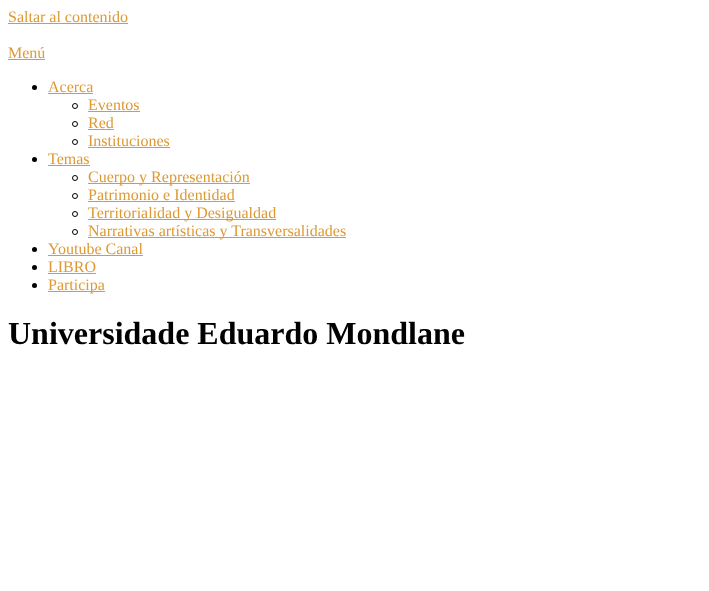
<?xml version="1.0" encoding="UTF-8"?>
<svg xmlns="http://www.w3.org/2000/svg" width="709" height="591">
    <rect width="100%" height="100%" fill="#FFFFFF"/>
    <text x="8" y="22" font-family="Liberation Serif" font-size="16" fill="#DD9933">Saltar al contenido</text>
    <rect x="8" y="23" width="120" height="1" fill="#DD9933"/>
    <text x="8" y="58" font-family="Liberation Serif" font-size="16" fill="#DD9933">Menú</text>
    <rect x="8" y="59" width="37" height="1" fill="#DD9933"/>
    <circle cx="34.5" cy="87.5" r="2.5" fill="#000000"/>
    <text x="48" y="92" font-family="Liberation Serif" font-size="16" fill="#DD9933">Acerca</text>
    <rect x="48" y="93" width="45" height="1" fill="#DD9933"/>
    <circle cx="75" cy="106" r="2.5" fill="none" stroke="#000000"/>
    <text x="88" y="110" font-family="Liberation Serif" font-size="16" fill="#DD9933">Eventos</text>
    <rect x="88" y="111" width="52" height="1" fill="#DD9933"/>
    <circle cx="75" cy="124" r="2.5" fill="none" stroke="#000000"/>
    <text x="88" y="128" font-family="Liberation Serif" font-size="16" fill="#DD9933">Red</text>
    <rect x="88" y="129" width="26" height="1" fill="#DD9933"/>
    <circle cx="75" cy="142" r="2.5" fill="none" stroke="#000000"/>
    <text x="88" y="146" font-family="Liberation Serif" font-size="16" fill="#DD9933">Instituciones</text>
    <rect x="88" y="147" width="82" height="1" fill="#DD9933"/>
    <circle cx="34.5" cy="159.5" r="2.5" fill="#000000"/>
    <text x="48" y="164" font-family="Liberation Serif" font-size="16" fill="#DD9933">Temas</text>
    <rect x="48" y="165" width="42" height="1" fill="#DD9933"/>
    <circle cx="75" cy="178" r="2.5" fill="none" stroke="#000000"/>
    <rect x="88" y="183" width="162" height="1" fill="#DD9933"/>
    <text x="88" y="182" font-family="Liberation Serif" font-size="16" fill="#DD9933">Cuerpo y Representación</text>
    <circle cx="75" cy="196" r="2.5" fill="none" stroke="#000000"/>
    <text x="88" y="200" font-family="Liberation Serif" font-size="16" fill="#DD9933">Patrimonio e Identidad</text>
    <rect x="88" y="201" width="147" height="1" fill="#DD9933"/>
    <circle cx="75" cy="214" r="2.5" fill="none" stroke="#000000"/>
    <rect x="88" y="219" width="188" height="1" fill="#DD9933"/>
    <text x="88" y="218" font-family="Liberation Serif" font-size="16" fill="#DD9933">Territorialidad y Desigualdad</text>
    <circle cx="75" cy="232" r="2.5" fill="none" stroke="#000000"/>
    <rect x="88" y="237" width="258" height="1" fill="#DD9933"/>
    <text x="88" y="236" font-family="Liberation Serif" font-size="16" fill="#DD9933">Narrativas artísticas y Transversalidades</text>
    <circle cx="34.5" cy="249.5" r="2.5" fill="#000000"/>
    <text x="48" y="254" font-family="Liberation Serif" font-size="16" fill="#DD9933">Youtube Canal</text>
    <rect x="48" y="255" width="95" height="1" fill="#DD9933"/>
    <circle cx="34.5" cy="267.5" r="2.5" fill="#000000"/>
    <text x="48" y="272" font-family="Liberation Serif" font-size="16" fill="#DD9933">LIBRO</text>
    <rect x="48" y="273" width="48" height="1" fill="#DD9933"/>
    <circle cx="34.5" cy="285.5" r="2.5" fill="#000000"/>
    <rect x="48" y="291" width="57" height="1" fill="#DD9933"/>
    <text x="48" y="290" font-family="Liberation Serif" font-size="16" fill="#DD9933">Participa</text>
    <text x="8" y="344" font-family="Liberation Serif" font-size="32" font-weight="700" fill="#000000">Universidade Eduardo Mondlane</text>
</svg>
